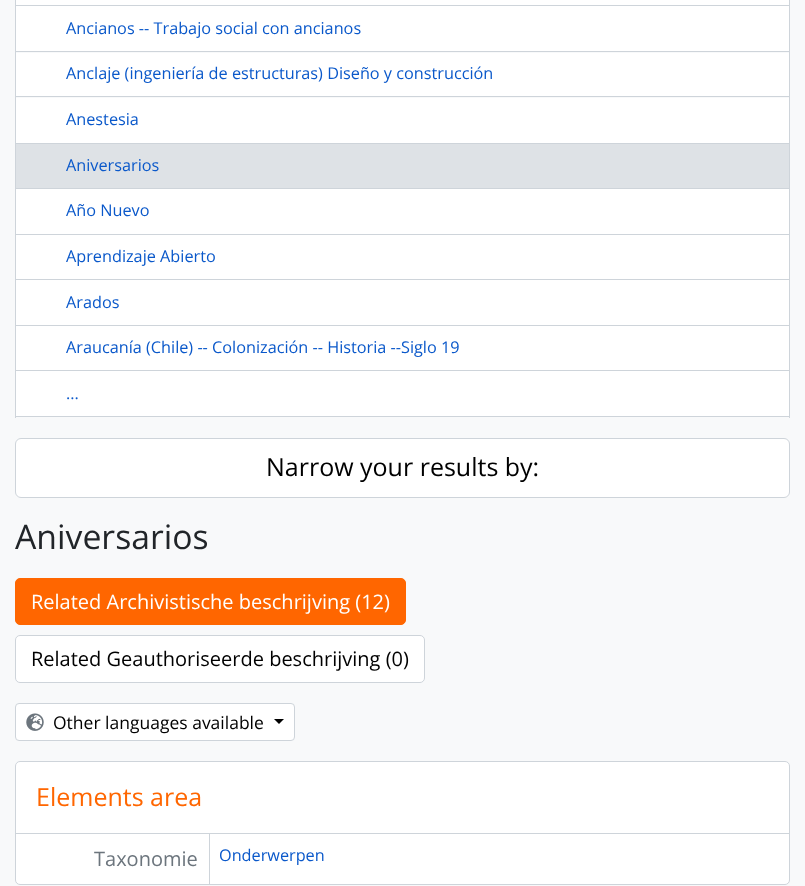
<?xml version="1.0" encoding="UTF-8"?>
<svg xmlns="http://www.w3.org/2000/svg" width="805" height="886">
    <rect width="100%" height="100%" fill="#F8F9FA"/>
    <rect x="16" y="0" width="773" height="5" fill="#FFFFFF"/>
    <rect x="789" y="0" width="1" height="144" fill="#CED4DA"/>
    <rect x="15" y="5" width="775" height="1" fill="#CED4DA"/>
    <rect x="15" y="0" width="1" height="6" fill="#CED4DA"/>
    <rect x="16" y="6" width="773" height="45" fill="#FFFFFF"/>
    <rect x="15" y="51" width="775" height="1" fill="#CED4DA"/>
    <rect x="15" y="6" width="1" height="47" fill="#CED4DA"/>
    <text x="66" y="34" font-family="Open Sans" font-size="16.25" fill="#0A58CA">Ancianos -- Trabajo social con ancianos</text>
    <rect x="16" y="53" width="773" height="43" fill="#FFFFFF"/>
    <rect x="15" y="96" width="775" height="1" fill="#CED4DA"/>
    <rect x="15" y="53" width="1" height="91" fill="#CED4DA"/>
    <text x="66" y="79" font-family="Open Sans" font-size="16.25" fill="#0A58CA">Anclaje (ingeniería de estructuras) Diseño y construcción</text>
    <rect x="16" y="98" width="773" height="45" fill="#FFFFFF"/>
    <text x="66" y="125" font-family="Open Sans" font-size="16.25" fill="#0A58CA">Anestesia</text>
    <rect x="15.5" y="143.5" width="774" height="45" fill="#DEE2E6" stroke="#CED4DA"/>
    <text x="66" y="171" font-family="Open Sans" font-size="16.25" fill="#0A58CA">Aniversarios</text>
    <rect x="16" y="189" width="773" height="45" fill="#FFFFFF"/>
    <rect x="789" y="189" width="1" height="229" fill="#CED4DA"/>
    <rect x="15" y="234" width="775" height="1" fill="#CED4DA"/>
    <rect x="15" y="189" width="1" height="46" fill="#CED4DA"/>
    <text x="66" y="216" font-family="Open Sans" font-size="16.25" fill="#0A58CA">Año Nuevo</text>
    <rect x="16" y="235" width="773" height="44" fill="#FFFFFF"/>
    <rect x="15" y="279" width="775" height="1" fill="#CED4DA"/>
    <rect x="15" y="235" width="1" height="45" fill="#CED4DA"/>
    <text x="66" y="262" font-family="Open Sans" font-size="16.25" fill="#0A58CA">Aprendizaje Abierto</text>
    <rect x="16" y="280" width="773" height="45" fill="#FFFFFF"/>
    <rect x="15" y="325" width="775" height="1" fill="#CED4DA"/>
    <rect x="15" y="280" width="1" height="46" fill="#CED4DA"/>
    <text x="66" y="308" font-family="Open Sans" font-size="16.25" fill="#0A58CA">Arados</text>
    <rect x="16" y="326" width="773" height="44" fill="#FFFFFF"/>
    <rect x="15" y="370" width="775" height="1" fill="#CED4DA"/>
    <rect x="15" y="326" width="1" height="45" fill="#CED4DA"/>
    <text x="66" y="353" font-family="Open Sans" font-size="16.25" fill="#0A58CA">Araucanía (Chile) -- Colonización -- Historia --Siglo 19</text>
    <rect x="16" y="371" width="773" height="45" fill="#FFFFFF"/>
    <rect x="15" y="416" width="775" height="1" fill="#CED4DA"/>
    <rect x="15" y="371" width="1" height="47" fill="#CED4DA"/>
    <text x="66" y="399" font-family="Open Sans" font-size="16.25" fill="#0A58CA">...</text>
    <rect x="15.5" y="438.5" width="774" height="59" rx="5.5" fill="#FFFFFF" stroke="#CED4DA"/>
    <text x="266" y="476" font-family="Open Sans" font-size="25" fill="#000000">Narrow your results by:</text>
    <text x="15" y="549" font-family="Open Sans" font-size="33.75" fill="#212529">Aniversarios</text>
    <rect x="15.5" y="578.5" width="390" height="46" rx="4.5" fill="#FF6600" stroke="#FF6600"/>
    <text x="31" y="609" font-family="Open Sans" font-size="20" fill="#FFFFFF">Related Archivistische beschrijving (12)</text>
    <rect x="15.5" y="635.5" width="409" height="47" rx="4.5" fill="#FFFFFF" stroke="#CED4DA"/>
    <text x="31" y="666" font-family="Open Sans" font-size="20" fill="#000000">Related Geauthoriseerde beschrijving (0)</text>
    <rect x="15.5" y="703.5" width="279" height="37" rx="3.5" fill="#FFFFFF" stroke="#CED4DA"/>
    <image x="26" y="713" width="18" height="18" href="img_01.png"/>
    <text x="53" y="729" font-family="Open Sans" font-size="17.5" fill="#000000">Other languages available</text>
    <path d="M 274 719 H 284 L 279 724 Z" fill="#000000"/>
    <rect x="15.5" y="761.5" width="774" height="123" rx="4.5" fill="#FFFFFF" stroke="#CED4DA"/>
    <rect x="16" y="833" width="773" height="1" fill="#CED4DA"/>
    <text x="36" y="806" font-family="Open Sans" font-size="25" fill="#FF6600">Elements area</text>
    <rect x="209" y="834" width="1" height="50" fill="#CED4DA"/>
    <text x="94" y="866" font-family="Open Sans" font-size="20" fill="#6C757D">Taxonomie</text>
    <text x="219" y="861" font-family="Open Sans" font-size="16.25" fill="#0A58CA">Onderwerpen</text>
</svg>
